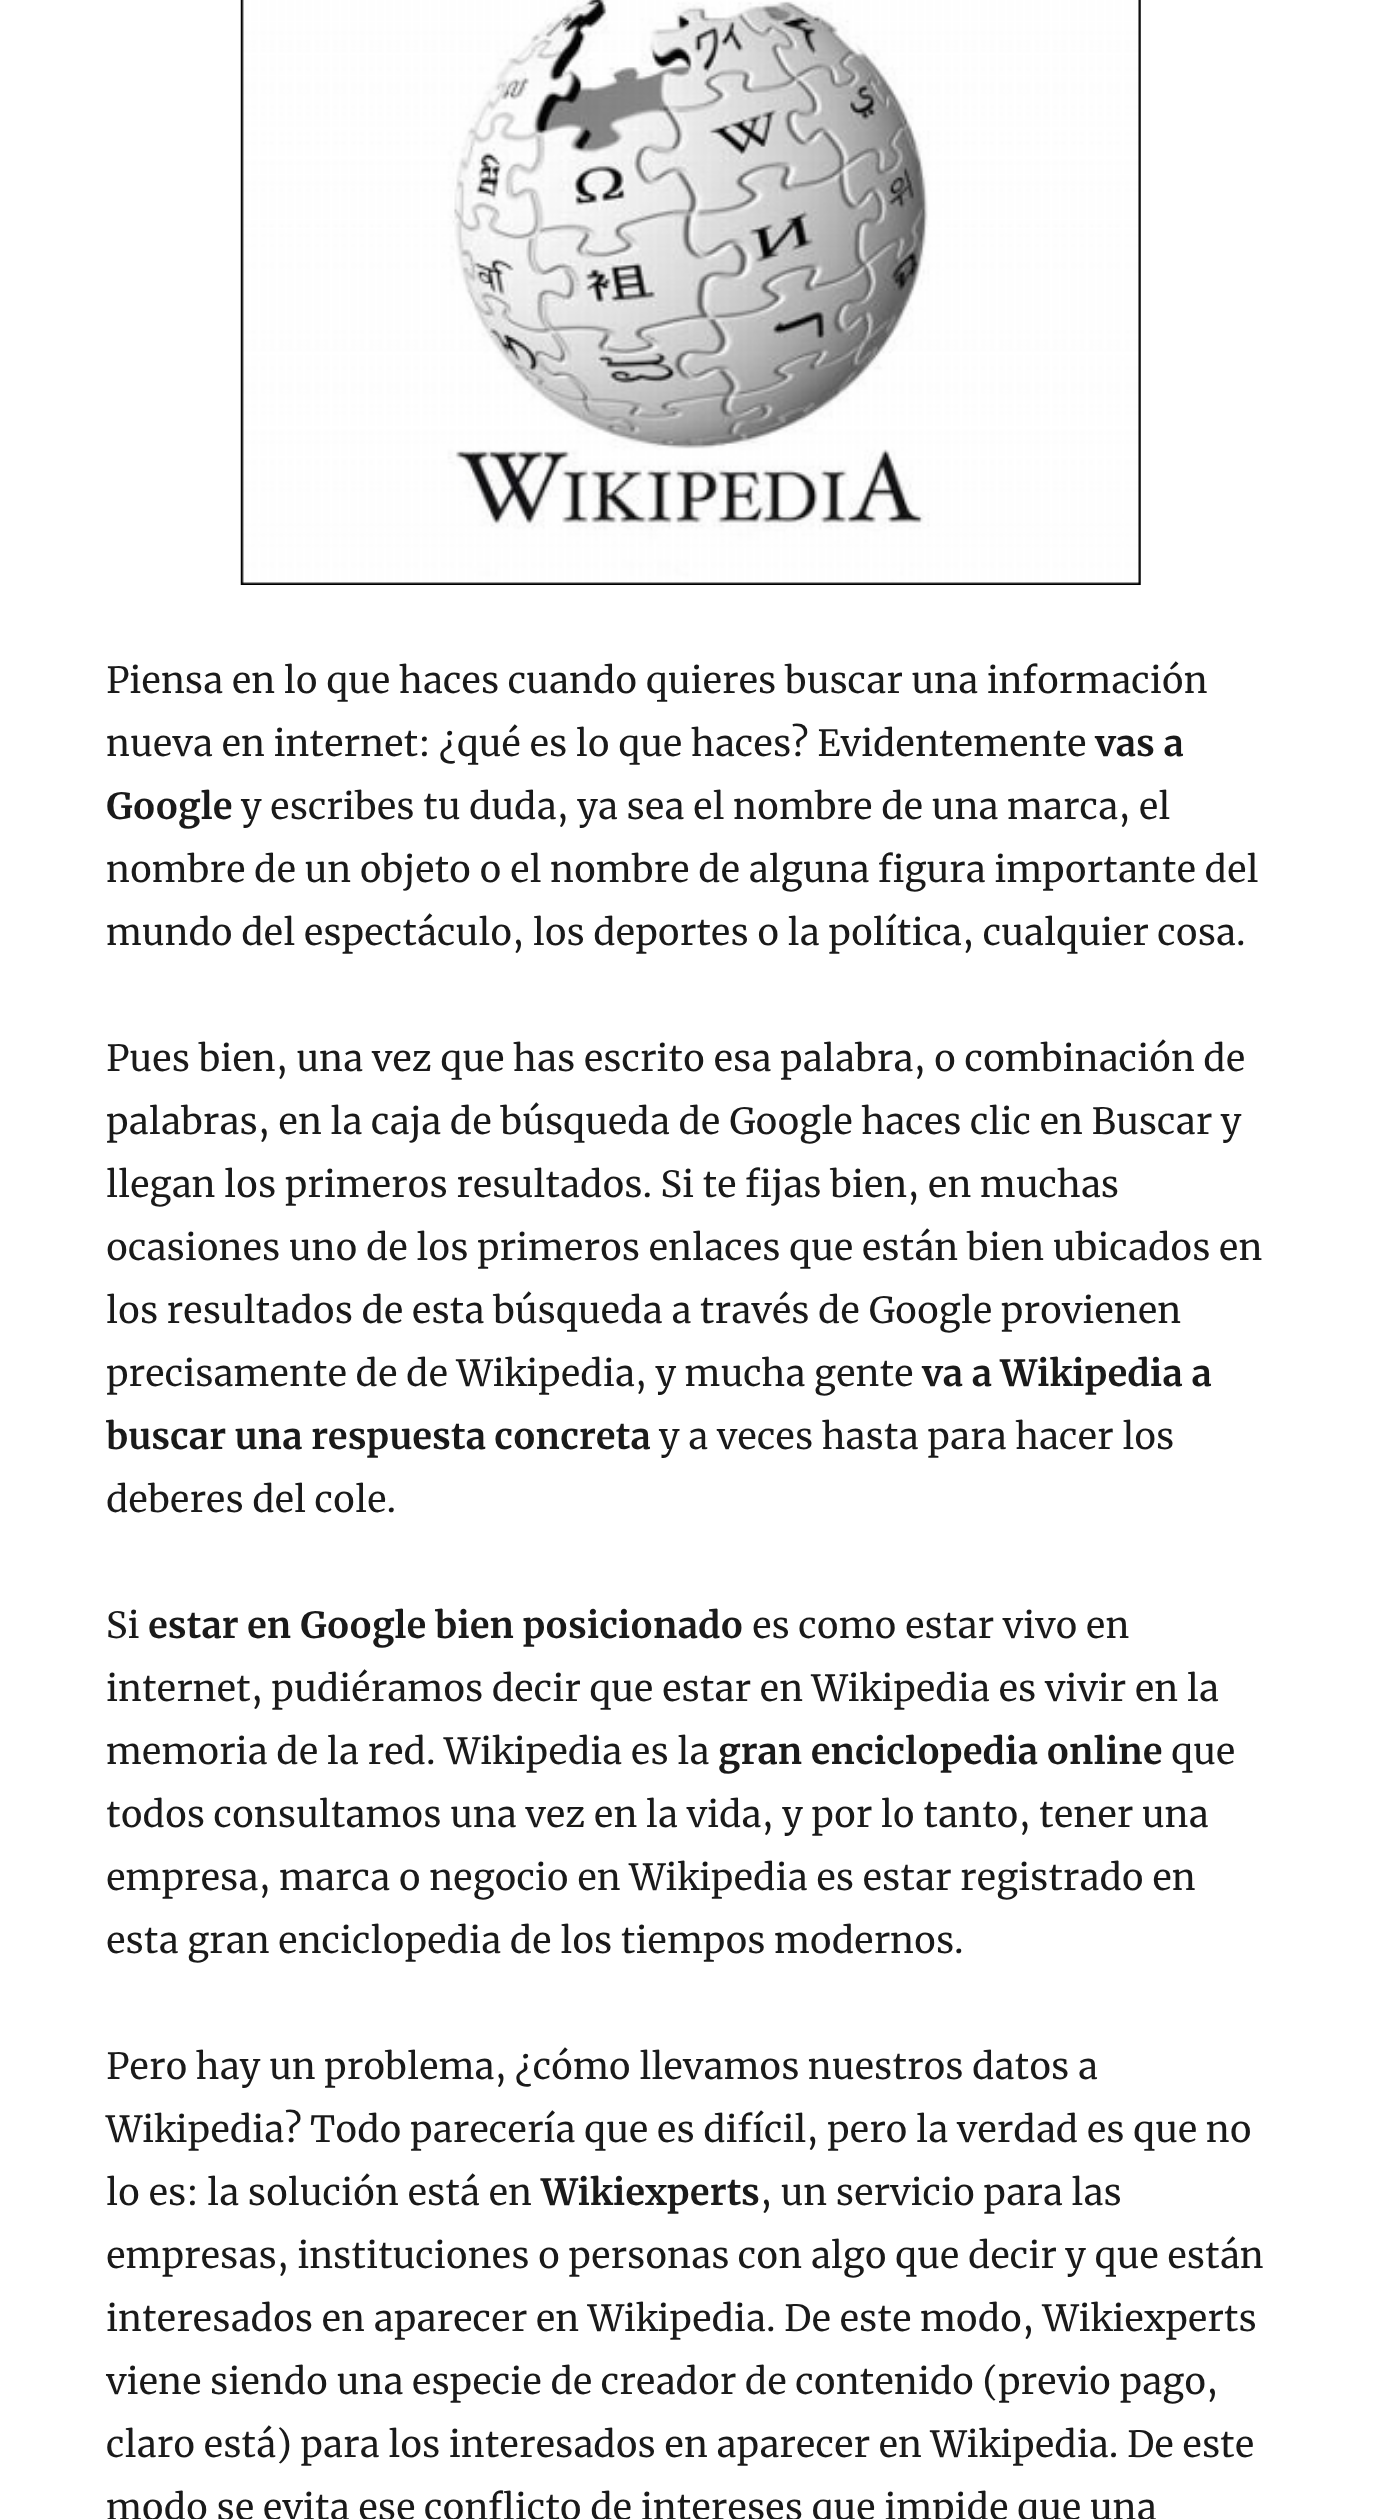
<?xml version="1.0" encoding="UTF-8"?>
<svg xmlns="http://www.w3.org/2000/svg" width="1380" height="2519">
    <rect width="100%" height="100%" fill="#FFFFFF"/>
    <image x="240" y="0" width="901" height="585" href="img_01.png"/>
    <text font-family="Merriweather" font-size="36" fill="#1A1A1A">
        <tspan x="106" y="693">Piensa en lo que haces cuando quieres buscar una información</tspan>
        <tspan x="106" y="756">nueva en internet: ¿qué es lo que haces? Evidentemente</tspan>
    </text>
    <text x="1095" y="756" font-family="Merriweather" font-size="36" font-weight="700" fill="#1A1A1A">vas a</text>
    <text x="106" y="819" font-family="Merriweather" font-size="36" font-weight="700" fill="#1A1A1A">Google</text>
    <text x="241" y="819" font-family="Merriweather" font-size="36" fill="#1A1A1A">y escribes tu duda, ya sea el nombre de una marca, el</text>
    <text font-family="Merriweather" font-size="36" fill="#1A1A1A">
        <tspan x="106" y="882">nombre de un objeto o el nombre de alguna figura importante del</tspan>
        <tspan x="106" y="945">mundo del espectáculo, los deportes o la política, cualquier cosa.</tspan>
    </text>
    <text font-family="Merriweather" font-size="36" fill="#1A1A1A">
        <tspan x="106" y="1071">Pues bien, una vez que has escrito esa palabra, o combinación de</tspan>
        <tspan x="106" y="1134">palabras, en la caja de búsqueda de Google haces clic en Buscar y</tspan>
        <tspan x="106" y="1197">llegan los primeros resultados. Si te fijas bien, en muchas</tspan>
        <tspan x="106" y="1260">ocasiones uno de los primeros enlaces que están bien ubicados en</tspan>
        <tspan x="106" y="1323">los resultados de esta búsqueda a través de Google provienen</tspan>
        <tspan x="106" y="1386">precisamente de de Wikipedia, y mucha gente</tspan>
    </text>
    <text x="922" y="1386" font-family="Merriweather" font-size="36" font-weight="700" fill="#1A1A1A">va a Wikipedia a</text>
    <text x="106" y="1449" font-family="Merriweather" font-size="36" font-weight="700" fill="#1A1A1A">buscar una respuesta concreta</text>
    <text x="659" y="1449" font-family="Merriweather" font-size="36" fill="#1A1A1A">y a veces hasta para hacer los</text>
    <text x="106" y="1512" font-family="Merriweather" font-size="36" fill="#1A1A1A">deberes del cole.</text>
    <text x="106" y="1638" font-family="Merriweather" font-size="36" fill="#1A1A1A">Si</text>
    <text x="148" y="1638" font-family="Merriweather" font-size="36" font-weight="700" fill="#1A1A1A">estar en Google bien posicionado</text>
    <text x="752" y="1638" font-family="Merriweather" font-size="36" fill="#1A1A1A">es como estar vivo en</text>
    <text font-family="Merriweather" font-size="36" fill="#1A1A1A">
        <tspan x="106" y="1701">internet, pudiéramos decir que estar en Wikipedia es vivir en la</tspan>
        <tspan x="106" y="1764">memoria de la red. Wikipedia es la</tspan>
    </text>
    <text x="718" y="1764" font-family="Merriweather" font-size="36" font-weight="700" fill="#1A1A1A">gran enciclopedia online</text>
    <text x="1171" y="1764" font-family="Merriweather" font-size="36" fill="#1A1A1A">que</text>
    <text font-family="Merriweather" font-size="36" fill="#1A1A1A">
        <tspan x="106" y="1827">todos consultamos una vez en la vida, y por lo tanto, tener una</tspan>
        <tspan x="106" y="1890">empresa, marca o negocio en Wikipedia es estar registrado en</tspan>
        <tspan x="106" y="1953">esta gran enciclopedia de los tiempos modernos.</tspan>
    </text>
    <text font-family="Merriweather" font-size="36" fill="#1A1A1A">
        <tspan x="106" y="2079">Pero hay un problema, ¿cómo llevamos nuestros datos a</tspan>
        <tspan x="106" y="2142">Wikipedia? Todo parecería que es difícil, pero la verdad es que no</tspan>
        <tspan x="106" y="2205">lo es: la solución está en</tspan>
    </text>
    <text x="541" y="2205" font-family="Merriweather" font-size="36" font-weight="700" fill="#1A1A1A">Wikiexperts</text>
    <text x="760" y="2205" font-family="Merriweather" font-size="36" fill="#1A1A1A">, un servicio para las</text>
    <text font-family="Merriweather" font-size="36" fill="#1A1A1A">
        <tspan x="106" y="2268">empresas, instituciones o personas con algo que decir y que están</tspan>
        <tspan x="106" y="2331">interesados en aparecer en Wikipedia. De este modo, Wikiexperts</tspan>
        <tspan x="106" y="2394">viene siendo una especie de creador de contenido (previo pago,</tspan>
        <tspan x="106" y="2457">claro está) para los interesados en aparecer en Wikipedia. De este</tspan>
        <tspan x="106" y="2520">modo se evita ese conflicto de intereses que impide que una</tspan>
    </text>
</svg>
